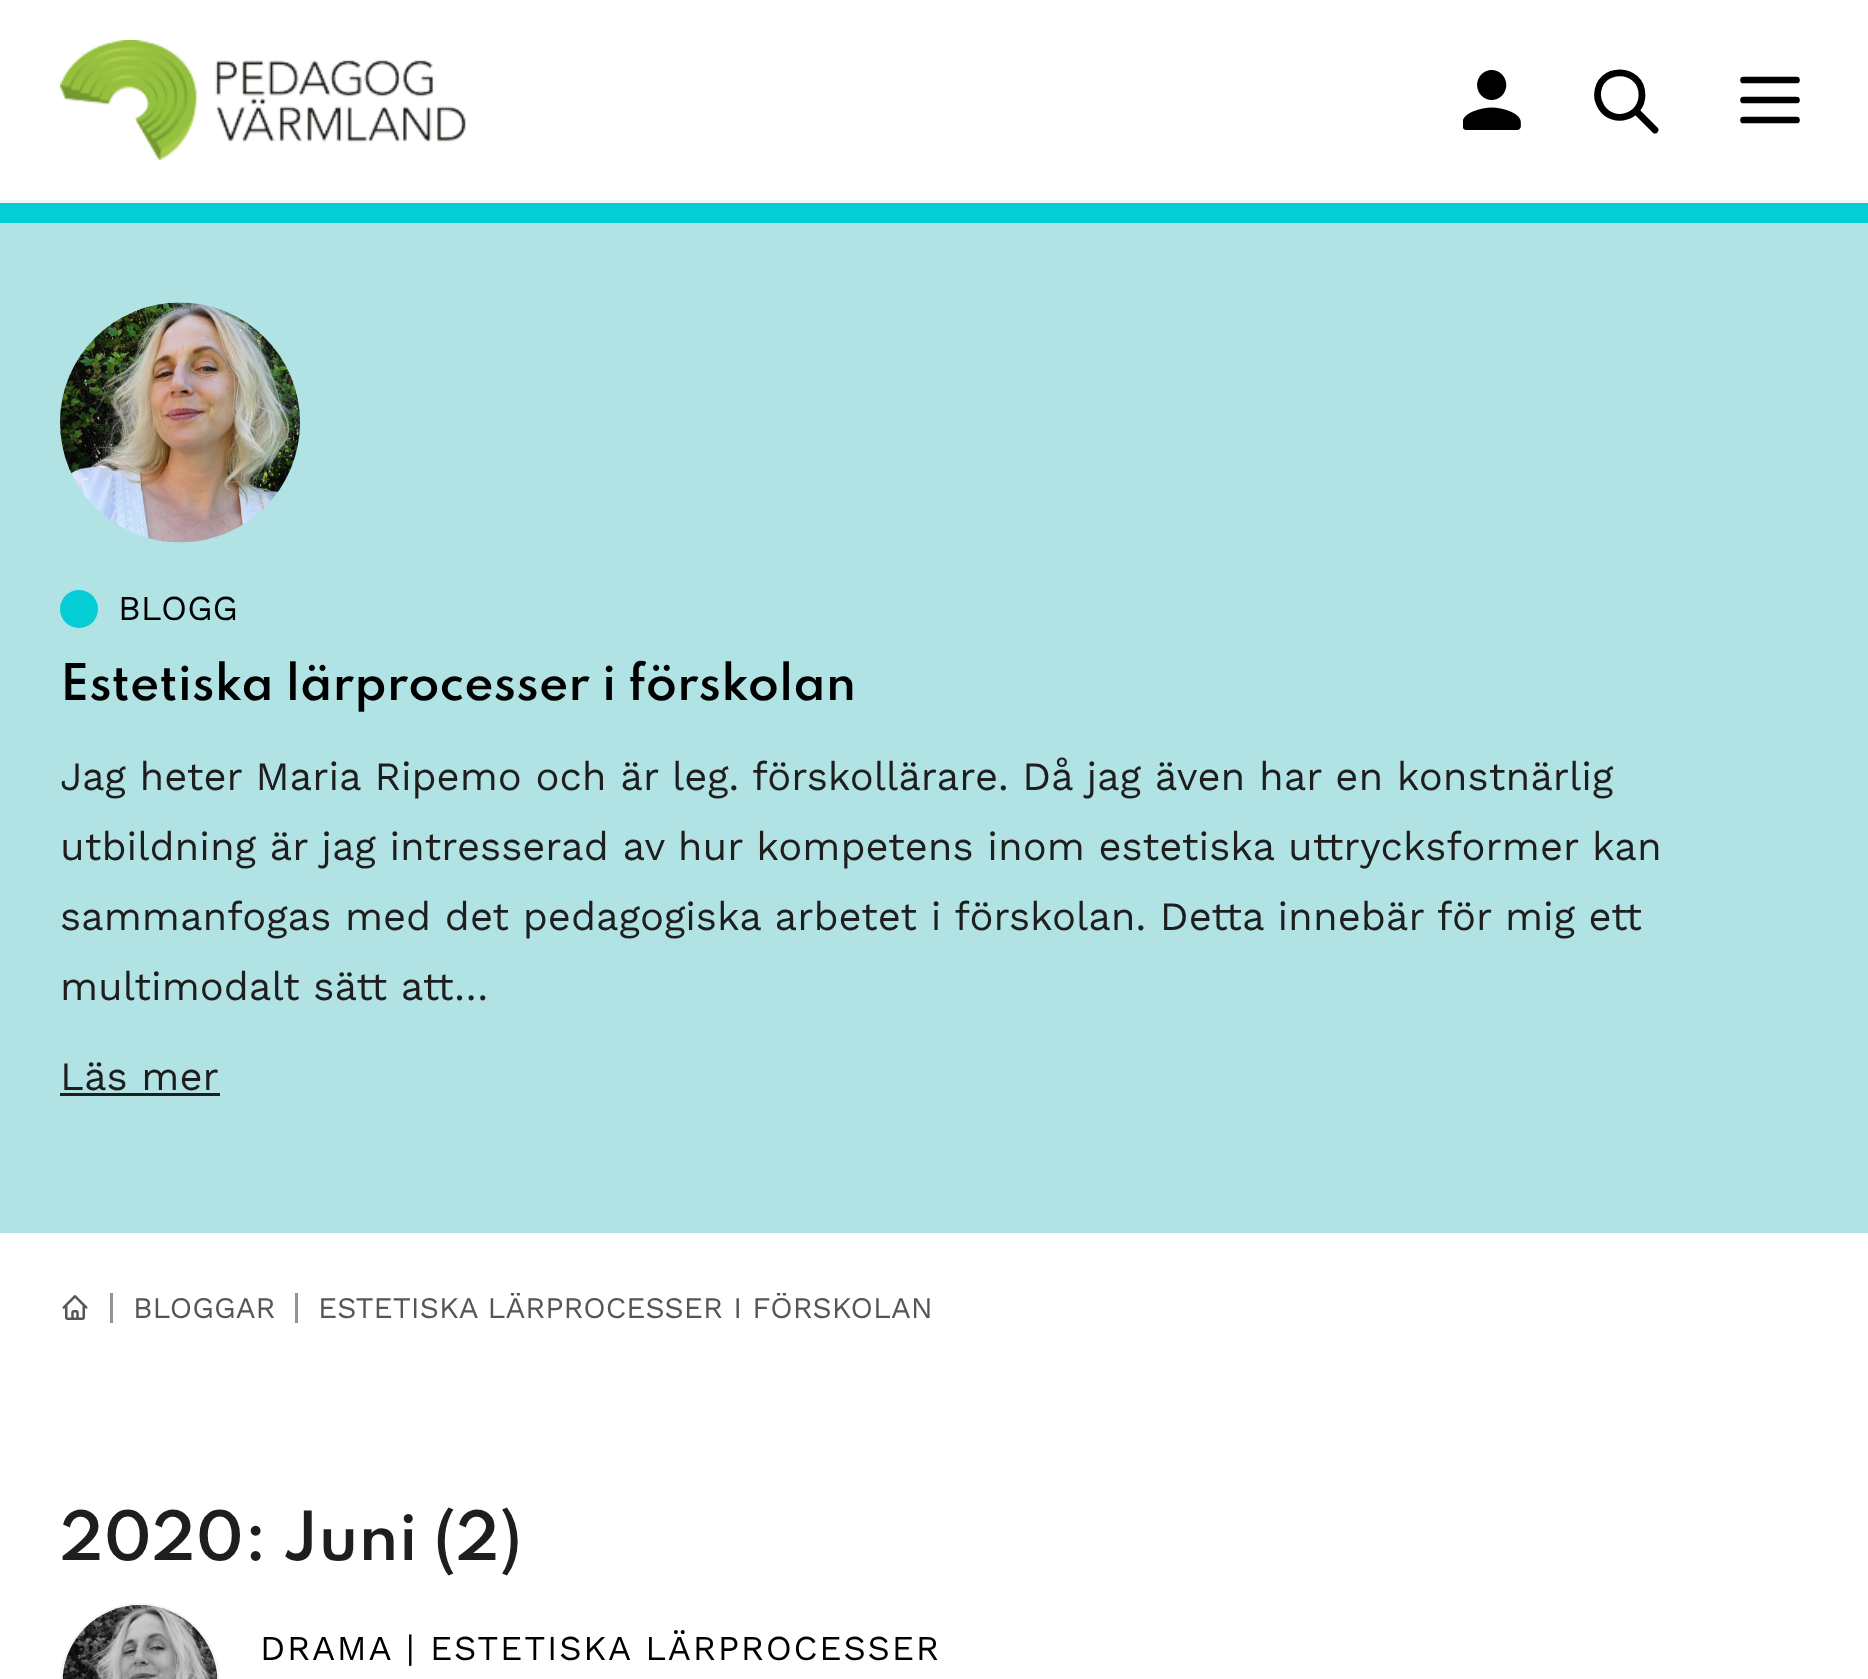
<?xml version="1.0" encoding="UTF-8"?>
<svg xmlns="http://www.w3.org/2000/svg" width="1868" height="1679">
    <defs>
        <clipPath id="clip1"><rect x="298" y="1293" width="655" height="30"/></clipPath>
    </defs>
    <rect width="100%" height="100%" fill="#FFFFFF"/>
    <rect x="0" y="200" width="1868" height="3" fill="#F5F5F5"/>
    <image x="60" y="40" width="406" height="120" href="img_01.png"/>
    <image x="1463" y="70" width="58" height="60" href="img_02.png"/>
    <path d="M 1655 130 L 1636 111 Z M 1642 95 C 1642 117 1613.5 125.5 1601.5 107.5 C 1599 103.5 1597.5 99 1597.5 95 C 1598 65 1642 66 1642 95 Z" fill="none" stroke="#000000" stroke-width="6.8" stroke-linecap="round" stroke-linejoin="round"/>
    <path d="M 1743.5 80 H 1796.5 M 1743.5 100 H 1796.5 M 1743.5 120 H 1796.5" fill="none" stroke="#000000" stroke-width="6.7" stroke-linecap="round" stroke-linejoin="round"/>
    <rect x="0" y="223" width="1868" height="1010" fill="#B1E3E5"/>
    <rect x="0" y="203" width="1868" height="20" fill="#04CDD6"/>
    <image x="60" y="302" width="240" height="241" href="img_03.png"/>
    <circle cx="79" cy="609" r="19" fill="#04CDD6"/>
    <text x="118" y="620" font-family="Work Sans" font-size="35" fill="#000000">BLOGG</text>
    <text x="60" y="700" font-family="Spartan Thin" font-size="45" font-weight="100" fill="#000000">Estetiska lärprocesser i förskolan</text>
    <text font-family="Work Sans" font-size="40" fill="#1E1E1E">
        <tspan x="60" y="790">Jag heter Maria Ripemo och är leg. förskollärare. Då jag även har en konstnärlig</tspan>
        <tspan x="60" y="860">utbildning är jag intresserad av hur kompetens inom estetiska uttrycksformer kan</tspan>
        <tspan x="60" y="930">sammanfogas med det pedagogiska arbetet i förskolan. Detta innebär för mig ett</tspan>
        <tspan x="60" y="1000">multimodalt sätt att…</tspan>
    </text>
    <text x="60" y="1090" font-family="Work Sans" font-size="40" fill="#1E1E1E">Läs mer</text>
    <rect x="60" y="1093" width="160" height="3" fill="#1E1E1E"/>
    <image x="62" y="1295" width="26" height="25" href="img_04.png"/>
    <rect x="110" y="1293" width="3" height="30" fill="#939393"/>
    <text x="133" y="1318" font-family="Work Sans" font-size="30" fill="#565656">BLOGGAR</text>
    <rect x="295" y="1293" width="3" height="30" fill="#939393"/>
    <g clip-path="url(#clip1)">
        <text x="318" y="1318" font-family="Work Sans" font-size="30" fill="#565656">ESTETISKA LÄRPROCESSER I FÖRSKOLAN</text>
    </g>
    <text x="60" y="1560" font-family="Spartan Thin" font-size="60" font-weight="100" fill="#1E1E1E">2020: Juni (2)</text>
    <rect x="61.5" y="1604.5" width="157" height="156" rx="78.5" fill="none" stroke="#F5F5F5" stroke-width="3"/>
    <image x="62" y="1605" width="156" height="74" href="img_05.png"/>
    <text x="260" y="1660" font-family="Work Sans" font-size="35" letter-spacing="1.75" fill="#000000">DRAMA</text>
    <text x="406" y="1660" font-family="Work Sans" font-size="35" letter-spacing="1.75" fill="#000000">| ESTETISKA LÄRPROCESSER</text>
</svg>
